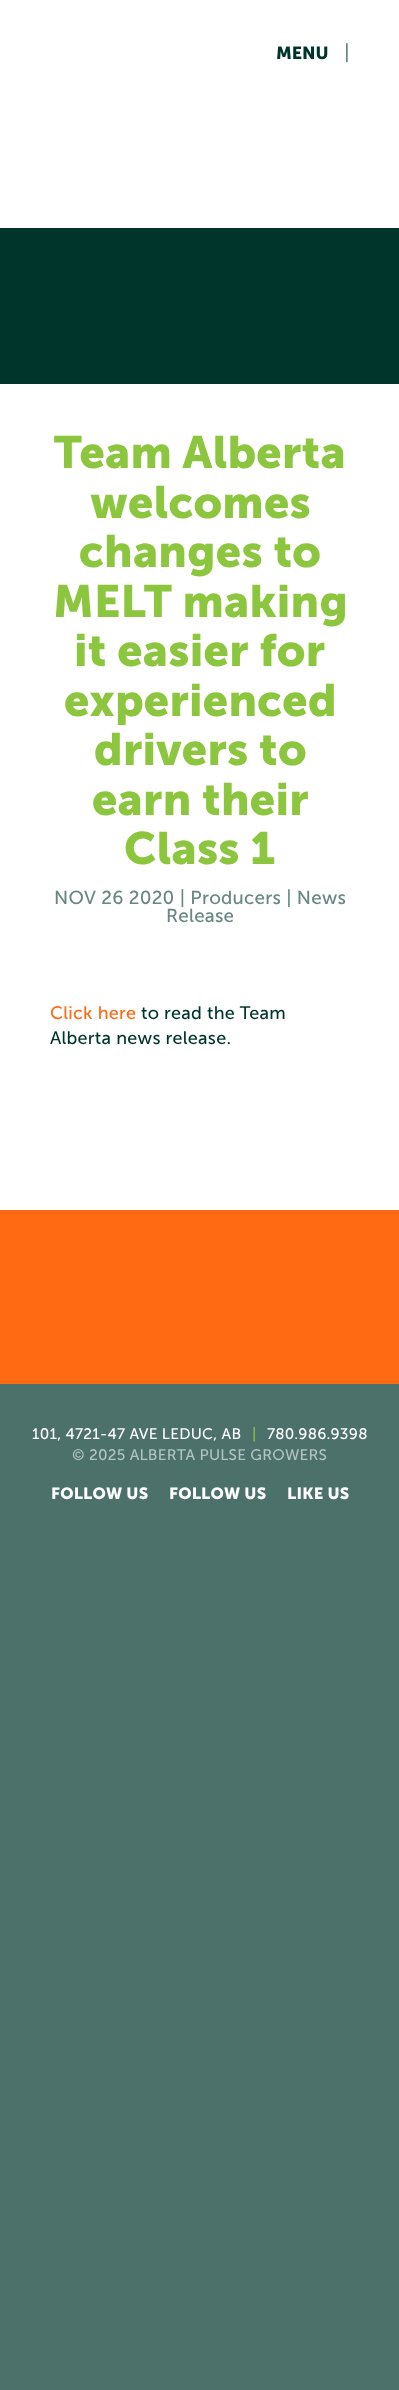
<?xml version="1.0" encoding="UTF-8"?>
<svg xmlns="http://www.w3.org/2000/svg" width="399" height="2390">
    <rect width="100%" height="100%" fill="#4C716B"/>
    <rect x="0" y="0" width="399" height="228" fill="#FFFFFF"/>
    <text x="276" y="59" font-family="'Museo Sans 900'" font-size="17.5" font-weight="700" fill="#00352B">MENU</text>
    <text x="344" y="59" font-family="'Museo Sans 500'" font-size="20" letter-spacing="0.25" fill="#688782">|</text>
    <rect x="0" y="384" width="399" height="826" fill="#FFFFFF"/>
    <rect x="0" y="228" width="399" height="156" fill="#00352B"/>
    <text x="54" y="468" font-family="'Museo Sans 900'" font-size="45" font-weight="700" letter-spacing="0.25" fill="#8CC63E">Team Alberta</text>
    <text x="90" y="518" font-family="'Museo Sans 900'" font-size="45" font-weight="700" letter-spacing="0.25" fill="#8CC63E">welcomes</text>
    <text x="79" y="567" font-family="'Museo Sans 900'" font-size="45" font-weight="700" letter-spacing="0.25" fill="#8CC63E">changes to</text>
    <text x="53" y="617" font-family="'Museo Sans 900'" font-size="45" font-weight="700" letter-spacing="0.25" fill="#8CC63E">MELT making</text>
    <text x="74" y="666" font-family="'Museo Sans 900'" font-size="45" font-weight="700" letter-spacing="0.25" fill="#8CC63E">it easier for</text>
    <text x="64" y="716" font-family="'Museo Sans 900'" font-size="45" font-weight="700" letter-spacing="0.25" fill="#8CC63E">experienced</text>
    <text x="94" y="765" font-family="'Museo Sans 900'" font-size="45" font-weight="700" letter-spacing="0.25" fill="#8CC63E">drivers to</text>
    <text x="92" y="815" font-family="'Museo Sans 900'" font-size="45" font-weight="700" letter-spacing="0.25" fill="#8CC63E">earn their</text>
    <text x="124" y="864" font-family="'Museo Sans 900'" font-size="45" font-weight="700" letter-spacing="0.25" fill="#8CC63E">Class 1</text>
    <text x="54" y="904" font-family="'Museo Sans 500'" font-size="18.75" letter-spacing="0.25" fill="#688782">NOV 26 2020 | Producers | News</text>
    <text x="166" y="922" font-family="'Museo Sans 500'" font-size="18.75" letter-spacing="0.25" fill="#688782">Release</text>
    <text x="50" y="1019" font-family="'Museo Sans 500'" font-size="18" letter-spacing="0.25" fill="#FF6A13">Click here</text>
    <text x="141" y="1019" font-family="'Museo Sans 500'" font-size="18" letter-spacing="0.25" fill="#00352B">to read the Team</text>
    <text x="50" y="1044" font-family="'Museo Sans 500'" font-size="18" letter-spacing="0.25" fill="#00352B">Alberta news release.</text>
    <rect x="0" y="1210" width="399" height="174" fill="#FF6A13"/>
    <text x="32" y="1439" font-family="'Museo Sans 500'" font-size="15.25" letter-spacing="0.25" fill="#FFFFFF">101, 4721-47 AVE LEDUC, AB</text>
    <text x="252" y="1439" font-family="'Museo Sans 500'" font-size="15.25" letter-spacing="0.25" fill="#8CC63E">|</text>
    <text x="267" y="1439" font-family="'Museo Sans 500'" font-size="15.25" letter-spacing="0.25" fill="#FFFFFF">780.986.9398</text>
    <text x="72" y="1460" font-family="'Museo Sans 500'" font-size="15.25" letter-spacing="0.25" fill="#B3C3C0">© 2025 ALBERTA PULSE GROWERS</text>
    <text x="51" y="1499" font-family="'Museo Sans 900'" font-size="16.25" font-weight="700" letter-spacing="0.25" fill="#FFFFFF">FOLLOW US</text>
    <text x="169" y="1499" font-family="'Museo Sans 900'" font-size="16.25" font-weight="700" letter-spacing="0.25" fill="#FFFFFF">FOLLOW US</text>
    <text x="287" y="1499" font-family="'Museo Sans 900'" font-size="16.25" font-weight="700" letter-spacing="0.25" fill="#FFFFFF">LIKE US</text>
</svg>
